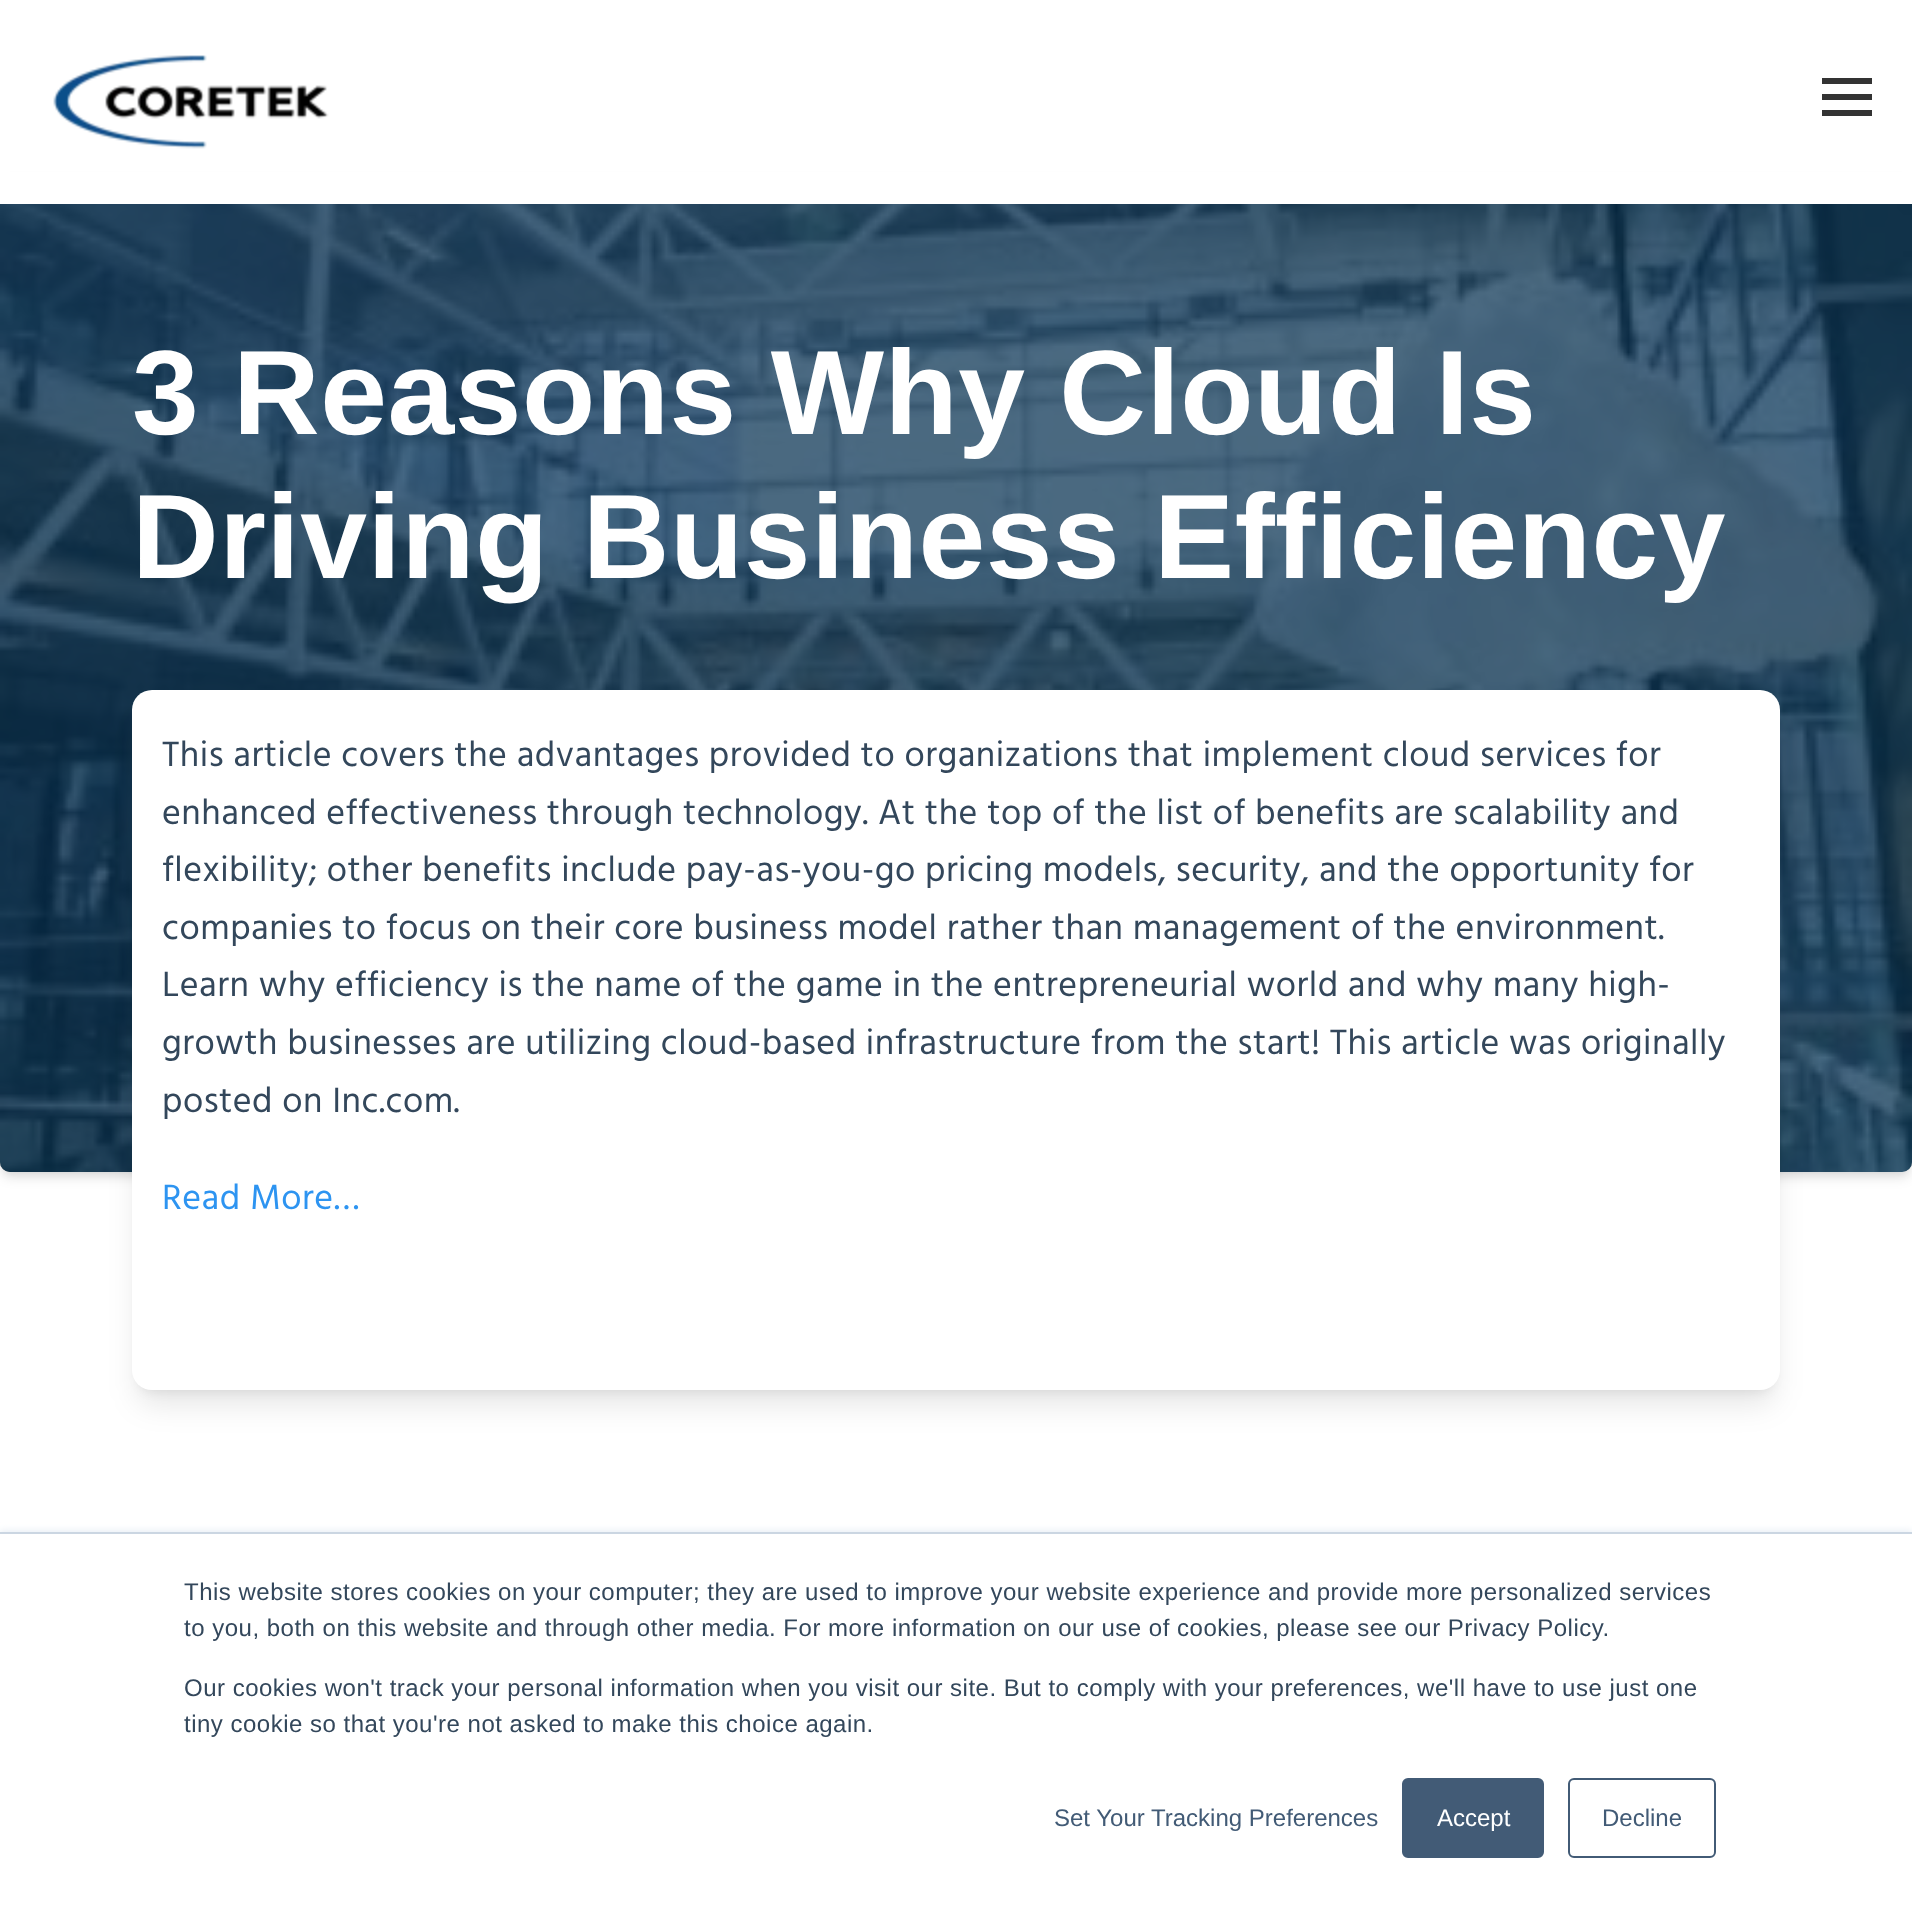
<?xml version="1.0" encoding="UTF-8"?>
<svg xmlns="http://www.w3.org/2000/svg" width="1912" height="1910">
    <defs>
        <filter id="blur1" x="-50%" y="-200%" width="200%" height="500%"><feGaussianBlur stdDeviation="4"/></filter>
        <filter id="blur2" x="-50%" y="-200%" width="200%" height="500%"><feGaussianBlur stdDeviation="6"/></filter>
        <filter id="blur3" x="-50%" y="-200%" width="200%" height="500%"><feGaussianBlur stdDeviation="15"/></filter>
        <filter id="blur4" x="-50%" y="-200%" width="200%" height="500%"><feGaussianBlur stdDeviation="3"/></filter>
    </defs>
    <rect width="100%" height="100%" fill="#FFFFFF"/>
    <rect x="4" y="180" width="1904" height="992" rx="6" fill="#000000" fill-opacity="0.1" filter="url(#blur1)"/>
    <rect x="2" y="182" width="1908" height="996" rx="8" fill="#000000" fill-opacity="0.1" filter="url(#blur2)"/>
    <image x="0" y="204" width="1912" height="968" href="img_02.png"/>
    <rect x="0" y="172" width="1912" height="1000" rx="10" fill="#012D4E" fill-opacity="0.7"/>
    <rect x="0" y="172" width="1912" height="32" fill="#FFFFFF"/>
    <image x="53" y="55" width="276" height="94" href="img_01.png"/>
    <rect x="1822" y="78" width="50" height="6" fill="#333333"/>
    <rect x="1822" y="94" width="50" height="6" fill="#333333"/>
    <rect x="1822" y="110" width="50" height="6" fill="#333333"/>
    <text font-family="Liberation Sans" font-size="120" font-weight="700" letter-spacing="0.5" fill="#FFFFFF">
        <tspan x="132" y="434">3 Reasons Why Cloud Is</tspan>
        <tspan x="132" y="578">Driving Business Efficiency</tspan>
    </text>
    <rect x="140" y="706" width="1632" height="684" rx="12" fill="#000000" fill-opacity="0.1" filter="url(#blur2)"/>
    <rect x="138" y="716" width="1636" height="688" rx="14" fill="#000000" fill-opacity="0.1" filter="url(#blur3)"/>
    <rect x="132" y="690" width="1648" height="700" rx="20" fill="#FFFFFF"/>
    <text font-family="Hind" font-size="36" letter-spacing="0.5" fill="#33475B">
        <tspan x="162" y="766">This article covers the advantages provided to organizations that implement cloud services for</tspan>
        <tspan x="162" y="824">enhanced effectiveness through technology. At the top of the list of benefits are scalability and</tspan>
        <tspan x="162" y="881">flexibility; other benefits include pay-as-you-go pricing models, security, and the opportunity for</tspan>
        <tspan x="162" y="939">companies to focus on their core business model rather than management of the environment.</tspan>
        <tspan x="162" y="996">Learn why efficiency is the name of the game in the entrepreneurial world and why many high-</tspan>
        <tspan x="162" y="1054">growth businesses are utilizing cloud-based infrastructure from the start! This article was originally</tspan>
        <tspan x="162" y="1112">posted on Inc.com.</tspan>
    </text>
    <text x="162" y="1209" font-family="Hind" font-size="36" letter-spacing="0.5" fill="#2D94F1">Read More…</text>
    <rect x="0" y="1530" width="1912" height="378" fill="#EAF0F6" filter="url(#blur4)"/>
    <rect x="0" y="1534" width="1912" height="376" fill="#FFFFFF"/>
    <rect x="0" y="1532" width="1912" height="2" fill="#CBD6E2"/>
    <text font-family="Liberation Sans" font-size="24" letter-spacing="0.5" fill="#33475B">
        <tspan x="184" y="1600">This website stores cookies on your computer; they are used to improve your website experience and provide more personalized services</tspan>
        <tspan x="184" y="1636">to you, both on this website and through other media. For more information on our use of cookies, please see our Privacy Policy.</tspan>
    </text>
    <text font-family="Liberation Sans" font-size="24" letter-spacing="0.5" fill="#33475B">
        <tspan x="184" y="1696">Our cookies won't track your personal information when you visit our site. But to comply with your preferences, we'll have to use just one</tspan>
        <tspan x="184" y="1732">tiny cookie so that you're not asked to make this choice again.</tspan>
    </text>
    <text x="1054" y="1826" font-family="Liberation Sans" font-size="24" fill="#425B76">Set Your Tracking Preferences</text>
    <rect x="1403" y="1779" width="140" height="78" rx="5" fill="#425B76" stroke="#425B76" stroke-width="2"/>
    <text x="1437" y="1826" font-family="Liberation Sans" font-size="24" fill="#FFFFFF">Accept</text>
    <rect x="1569" y="1779" width="146" height="78" rx="5" fill="none" stroke="#425B76" stroke-width="2"/>
    <text x="1602" y="1826" font-family="Liberation Sans" font-size="24" fill="#425B76">Decline</text>
</svg>
